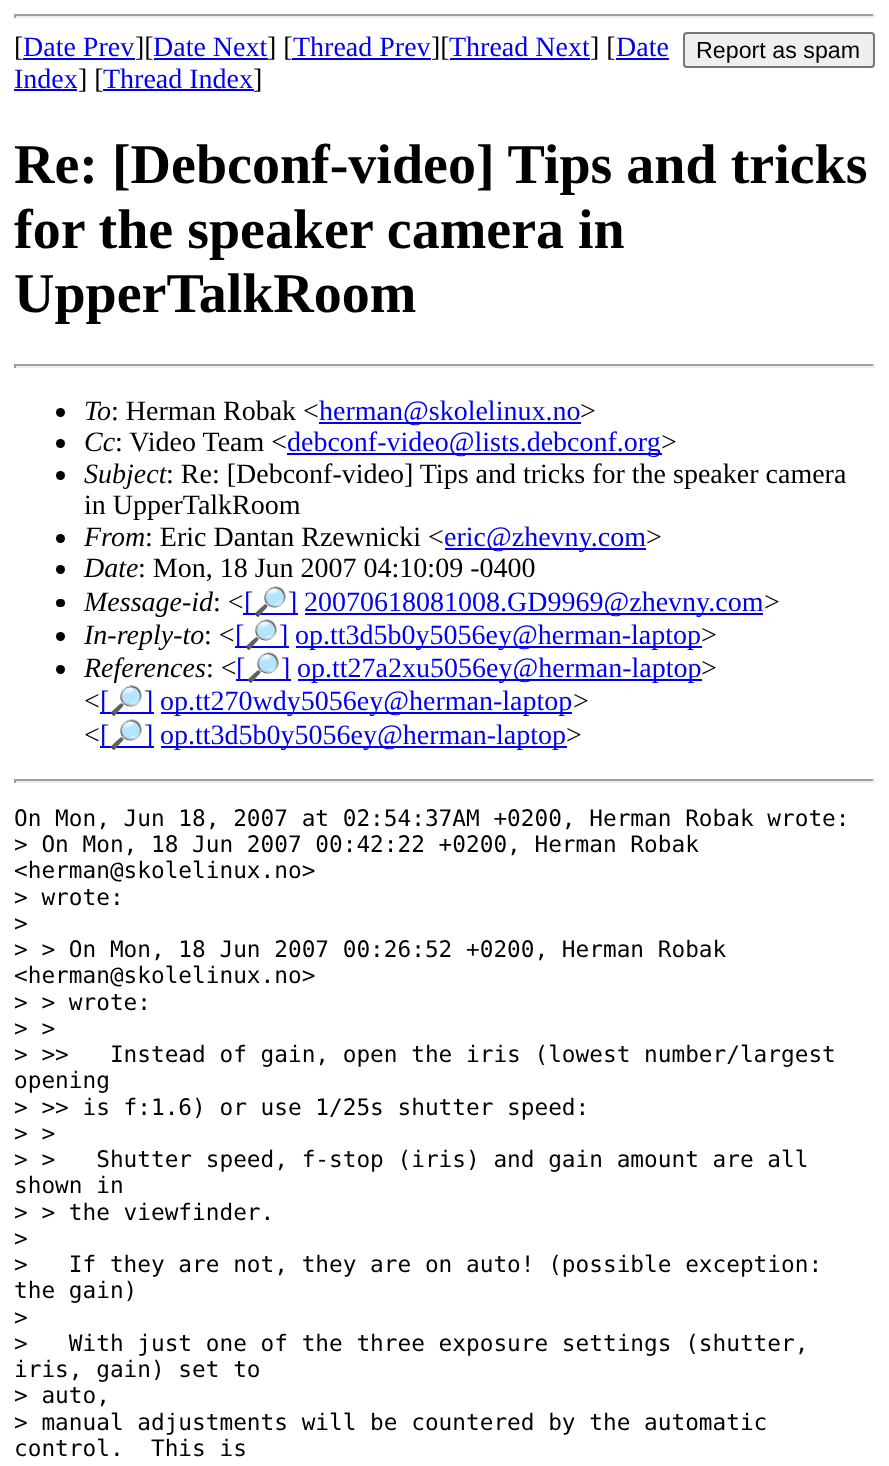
<?xml version="1.0" encoding="UTF-8"?>
<svg xmlns="http://www.w3.org/2000/svg" width="889" height="1466">
    <rect width="100%" height="100%" fill="#FFFFFF"/>
    <rect x="14" y="14" width="861" height="2" fill="#9F9F9F"/>
    <rect x="873" y="14" width="2" height="4" fill="#EEEEEE"/>
    <rect x="14" y="16" width="861" height="2" fill="#EEEEEE"/>
    <rect x="14" y="14" width="2" height="4" fill="#9F9F9F"/>
    <text x="14" y="56" font-family="Liberation Serif" font-size="28" fill="#000000">[</text>
    <text x="23" y="56" font-family="Liberation Serif" font-size="28" fill="#0000EE">Date Prev</text>
    <rect x="23" y="58" width="112" height="2" fill="#0000EE"/>
    <text x="135" y="56" font-family="Liberation Serif" font-size="28" fill="#000000">][</text>
    <text x="153" y="56" font-family="Liberation Serif" font-size="28" fill="#0000EE">Date Next</text>
    <rect x="154" y="58" width="114" height="2" fill="#0000EE"/>
    <text x="267" y="56" font-family="Liberation Serif" font-size="28" fill="#000000">] [</text>
    <text x="293" y="56" font-family="Liberation Serif" font-size="28" fill="#0000EE">Thread Prev</text>
    <rect x="292" y="58" width="139" height="2" fill="#0000EE"/>
    <text x="431" y="56" font-family="Liberation Serif" font-size="28" fill="#000000">][</text>
    <text x="449" y="56" font-family="Liberation Serif" font-size="28" fill="#0000EE">Thread Next</text>
    <rect x="450" y="58" width="140" height="2" fill="#0000EE"/>
    <text x="590" y="56" font-family="Liberation Serif" font-size="28" fill="#000000">] [</text>
    <text x="616" y="56" font-family="Liberation Serif" font-size="28" fill="#0000EE">Date</text>
    <rect x="616" y="58" width="53" height="2" fill="#0000EE"/>
    <rect x="684" y="33" width="190" height="34" rx="3" fill="#EFEFEF" stroke="#767676" stroke-width="2"/>
    <text x="696" y="58" font-family="Liberation Sans" font-size="23.25" fill="#000000">Report as spam</text>
    <text x="14" y="88" font-family="Liberation Serif" font-size="28" fill="#0000EE">Index</text>
    <rect x="14" y="89" width="63" height="2" fill="#0000EE"/>
    <text x="78" y="88" font-family="Liberation Serif" font-size="28" fill="#000000">] [</text>
    <text x="103" y="88" font-family="Liberation Serif" font-size="28" fill="#0000EE">Thread Index</text>
    <rect x="103" y="89" width="151" height="2" fill="#0000EE"/>
    <text x="253" y="88" font-family="Liberation Serif" font-size="28" fill="#000000">]</text>
    <text font-family="Liberation Serif" font-size="56" font-weight="700" fill="#000000">
        <tspan x="14" y="183">Re: [Debconf-video] Tips and tricks</tspan>
        <tspan x="14" y="248">for the speaker camera in</tspan>
        <tspan x="14" y="312">UpperTalkRoom</tspan>
    </text>
    <rect x="14" y="364" width="861" height="2" fill="#9F9F9F"/>
    <rect x="873" y="364" width="2" height="4" fill="#EEEEEE"/>
    <rect x="14" y="366" width="861" height="2" fill="#EEEEEE"/>
    <rect x="14" y="364" width="2" height="4" fill="#9F9F9F"/>
    <circle cx="60.5" cy="412.5" r="4.5" fill="#000000"/>
    <text x="84" y="420" font-family="Liberation Serif" font-size="28" font-style="italic" fill="#000000">To</text>
    <text x="111" y="420" font-family="Liberation Serif" font-size="28" fill="#000000">: Herman Robak &lt;</text>
    <rect x="319" y="422" width="262" height="2" fill="#0000EE"/>
    <text x="319" y="420" font-family="Liberation Serif" font-size="28" fill="#0000EE">herman@skolelinux.no</text>
    <text x="580" y="420" font-family="Liberation Serif" font-size="28" fill="#000000">&gt;</text>
    <circle cx="60.5" cy="443.5" r="4.5" fill="#000000"/>
    <text x="84" y="451" font-family="Liberation Serif" font-size="28" font-style="italic" fill="#000000">Cc</text>
    <text x="115" y="451" font-family="Liberation Serif" font-size="28" fill="#000000">: Video Team &lt;</text>
    <rect x="287" y="453" width="375" height="2" fill="#0000EE"/>
    <text x="287" y="451" font-family="Liberation Serif" font-size="28" fill="#0000EE">debconf-video@lists.debconf.org</text>
    <text x="661" y="451" font-family="Liberation Serif" font-size="28" fill="#000000">&gt;</text>
    <circle cx="60.5" cy="475.5" r="4.5" fill="#000000"/>
    <text x="84" y="483" font-family="Liberation Serif" font-size="28" font-style="italic" fill="#000000">Subject</text>
    <text x="166" y="483" font-family="Liberation Serif" font-size="28" fill="#000000">: Re: [Debconf-video] Tips and tricks for the speaker camera</text>
    <text x="84" y="514" font-family="Liberation Serif" font-size="28" fill="#000000">in UpperTalkRoom</text>
    <circle cx="60.5" cy="538.5" r="4.5" fill="#000000"/>
    <text x="84" y="546" font-family="Liberation Serif" font-size="28" font-style="italic" fill="#000000">From</text>
    <text x="145" y="546" font-family="Liberation Serif" font-size="28" fill="#000000">: Eric Dantan Rzewnicki &lt;</text>
    <rect x="445" y="548" width="201" height="2" fill="#0000EE"/>
    <text x="444" y="546" font-family="Liberation Serif" font-size="28" fill="#0000EE">eric@zhevny.com</text>
    <text x="646" y="546" font-family="Liberation Serif" font-size="28" fill="#000000">&gt;</text>
    <circle cx="60.5" cy="569.5" r="4.5" fill="#000000"/>
    <text x="84" y="577" font-family="Liberation Serif" font-size="28" font-style="italic" fill="#000000">Date</text>
    <text x="138" y="577" font-family="Liberation Serif" font-size="28" fill="#000000">: Mon, 18 Jun 2007 04:10:09 -0400</text>
    <rect x="56" y="599" width="9" height="8" rx="4" fill="#000000"/>
    <text x="84" y="611" font-family="Liberation Serif" font-size="28" font-style="italic" fill="#000000">Message-id</text>
    <text x="213" y="611" font-family="Liberation Serif" font-size="28" fill="#000000">: &lt;</text>
    <rect x="243" y="613" width="55" height="2" fill="#0000EE"/>
    <text x="244" y="611" font-family="Liberation Serif" font-size="28" fill="#0000EE">[</text>
    <text x="253" y="611" font-family="Noto Color Emoji" font-size="28" fill="#0000EE">🔎</text>
    <text x="288" y="611" font-family="Liberation Serif" font-size="28" fill="#0000EE">]</text>
    <rect x="305" y="613" width="458" height="2" fill="#0000EE"/>
    <text x="304" y="611" font-family="Liberation Serif" font-size="28" fill="#0000EE">20070618081008.GD9969@zhevny.com</text>
    <text x="764" y="611" font-family="Liberation Serif" font-size="28" fill="#000000">&gt;</text>
    <circle cx="60.5" cy="636.5" r="4.5" fill="#000000"/>
    <text x="84" y="644" font-family="Liberation Serif" font-size="28" font-style="italic" fill="#000000">In-reply-to</text>
    <text x="204" y="644" font-family="Liberation Serif" font-size="28" fill="#000000">: &lt;</text>
    <rect x="235" y="646" width="54" height="2" fill="#0000EE"/>
    <text x="235" y="644" font-family="Liberation Serif" font-size="28" fill="#0000EE">[</text>
    <text x="244" y="644" font-family="Noto Color Emoji" font-size="28" fill="#0000EE">🔎</text>
    <text x="279" y="644" font-family="Liberation Serif" font-size="28" fill="#0000EE">]</text>
    <rect x="296" y="646" width="406" height="2" fill="#0000EE"/>
    <text x="295" y="644" font-family="Liberation Serif" font-size="28" fill="#0000EE">op.tt3d5b0y5056ey@herman-laptop</text>
    <text x="701" y="644" font-family="Liberation Serif" font-size="28" fill="#000000">&gt;</text>
    <circle cx="60.5" cy="669.5" r="4.5" fill="#000000"/>
    <text x="84" y="677" font-family="Liberation Serif" font-size="28" font-style="italic" fill="#000000">References</text>
    <text x="206" y="677" font-family="Liberation Serif" font-size="28" fill="#000000">: &lt;</text>
    <rect x="236" y="679" width="55" height="2" fill="#0000EE"/>
    <text x="236" y="677" font-family="Liberation Serif" font-size="28" fill="#0000EE">[</text>
    <text x="246" y="677" font-family="Noto Color Emoji" font-size="28" fill="#0000EE">🔎</text>
    <text x="281" y="677" font-family="Liberation Serif" font-size="28" fill="#0000EE">]</text>
    <rect x="298" y="679" width="404" height="2" fill="#0000EE"/>
    <text x="297" y="677" font-family="Liberation Serif" font-size="28" fill="#0000EE">op.tt27a2xu5056ey@herman-laptop</text>
    <text x="701" y="677" font-family="Liberation Serif" font-size="28" fill="#000000">&gt;</text>
    <text x="84" y="710" font-family="Liberation Serif" font-size="28" fill="#000000">&lt;</text>
    <rect x="100" y="712" width="54" height="2" fill="#0000EE"/>
    <text x="100" y="710" font-family="Liberation Serif" font-size="28" fill="#0000EE">[</text>
    <text x="109" y="710" font-family="Noto Color Emoji" font-size="28" fill="#0000EE">🔎</text>
    <text x="144" y="710" font-family="Liberation Serif" font-size="28" fill="#0000EE">]</text>
    <rect x="161" y="712" width="411" height="2" fill="#0000EE"/>
    <text x="160" y="710" font-family="Liberation Serif" font-size="28" fill="#0000EE">op.tt270wdy5056ey@herman-laptop</text>
    <text x="573" y="710" font-family="Liberation Serif" font-size="28" fill="#000000">&gt;</text>
    <text x="84" y="744" font-family="Liberation Serif" font-size="28" fill="#000000">&lt;</text>
    <rect x="100" y="746" width="54" height="2" fill="#0000EE"/>
    <text x="100" y="744" font-family="Liberation Serif" font-size="28" fill="#0000EE">[</text>
    <text x="109" y="744" font-family="Noto Color Emoji" font-size="28" fill="#0000EE">🔎</text>
    <text x="144" y="744" font-family="Liberation Serif" font-size="28" fill="#0000EE">]</text>
    <rect x="161" y="746" width="406" height="2" fill="#0000EE"/>
    <text x="160" y="744" font-family="Liberation Serif" font-size="28" fill="#0000EE">op.tt3d5b0y5056ey@herman-laptop</text>
    <text x="566" y="744" font-family="Liberation Serif" font-size="28" fill="#000000">&gt;</text>
    <rect x="14" y="779" width="861" height="2" fill="#9F9F9F"/>
    <rect x="873" y="779" width="2" height="4" fill="#EEEEEE"/>
    <rect x="14" y="781" width="861" height="2" fill="#EEEEEE"/>
    <rect x="14" y="779" width="2" height="4" fill="#9F9F9F"/>
    <text font-family="DejaVu Sans Mono" font-size="22.75" fill="#000000" xml:space="preserve"><tspan x="14" y="826">On Mon, Jun 18, 2007 at 02:54:37AM +0200, Herman Robak wrote:</tspan><tspan x="14" y="852">&gt; On Mon, 18 Jun 2007 00:42:22 +0200, Herman Robak</tspan><tspan x="14" y="878">&lt;herman@skolelinux.no&gt;</tspan><tspan x="14" y="905">&gt; wrote:</tspan><tspan x="14" y="931">&gt;</tspan><tspan x="14" y="957">&gt; &gt; On Mon, 18 Jun 2007 00:26:52 +0200, Herman Robak</tspan><tspan x="14" y="983">&lt;herman@skolelinux.no&gt;</tspan><tspan x="14" y="1010">&gt; &gt; wrote:</tspan><tspan x="14" y="1036">&gt; &gt;</tspan><tspan x="14" y="1062">&gt; &gt;&gt;   Instead of gain, open the iris (lowest number/largest</tspan><tspan x="14" y="1088">opening</tspan><tspan x="14" y="1115">&gt; &gt;&gt; is f:1.6) or use 1/25s shutter speed:</tspan><tspan x="14" y="1141">&gt; &gt;</tspan><tspan x="14" y="1167">&gt; &gt;   Shutter speed, f-stop (iris) and gain amount are all</tspan><tspan x="14" y="1193">shown in</tspan><tspan x="14" y="1220">&gt; &gt; the viewfinder.</tspan><tspan x="14" y="1246">&gt;</tspan><tspan x="14" y="1272">&gt;   If they are not, they are on auto! (possible exception:</tspan><tspan x="14" y="1298">the gain)</tspan><tspan x="14" y="1325">&gt;</tspan><tspan x="14" y="1351">&gt;   With just one of the three exposure settings (shutter,</tspan><tspan x="14" y="1377">iris, gain) set to</tspan><tspan x="14" y="1403">&gt; auto,</tspan><tspan x="14" y="1430">&gt; manual adjustments will be countered by the automatic</tspan><tspan x="14" y="1456">control.  This is</tspan></text>
</svg>
